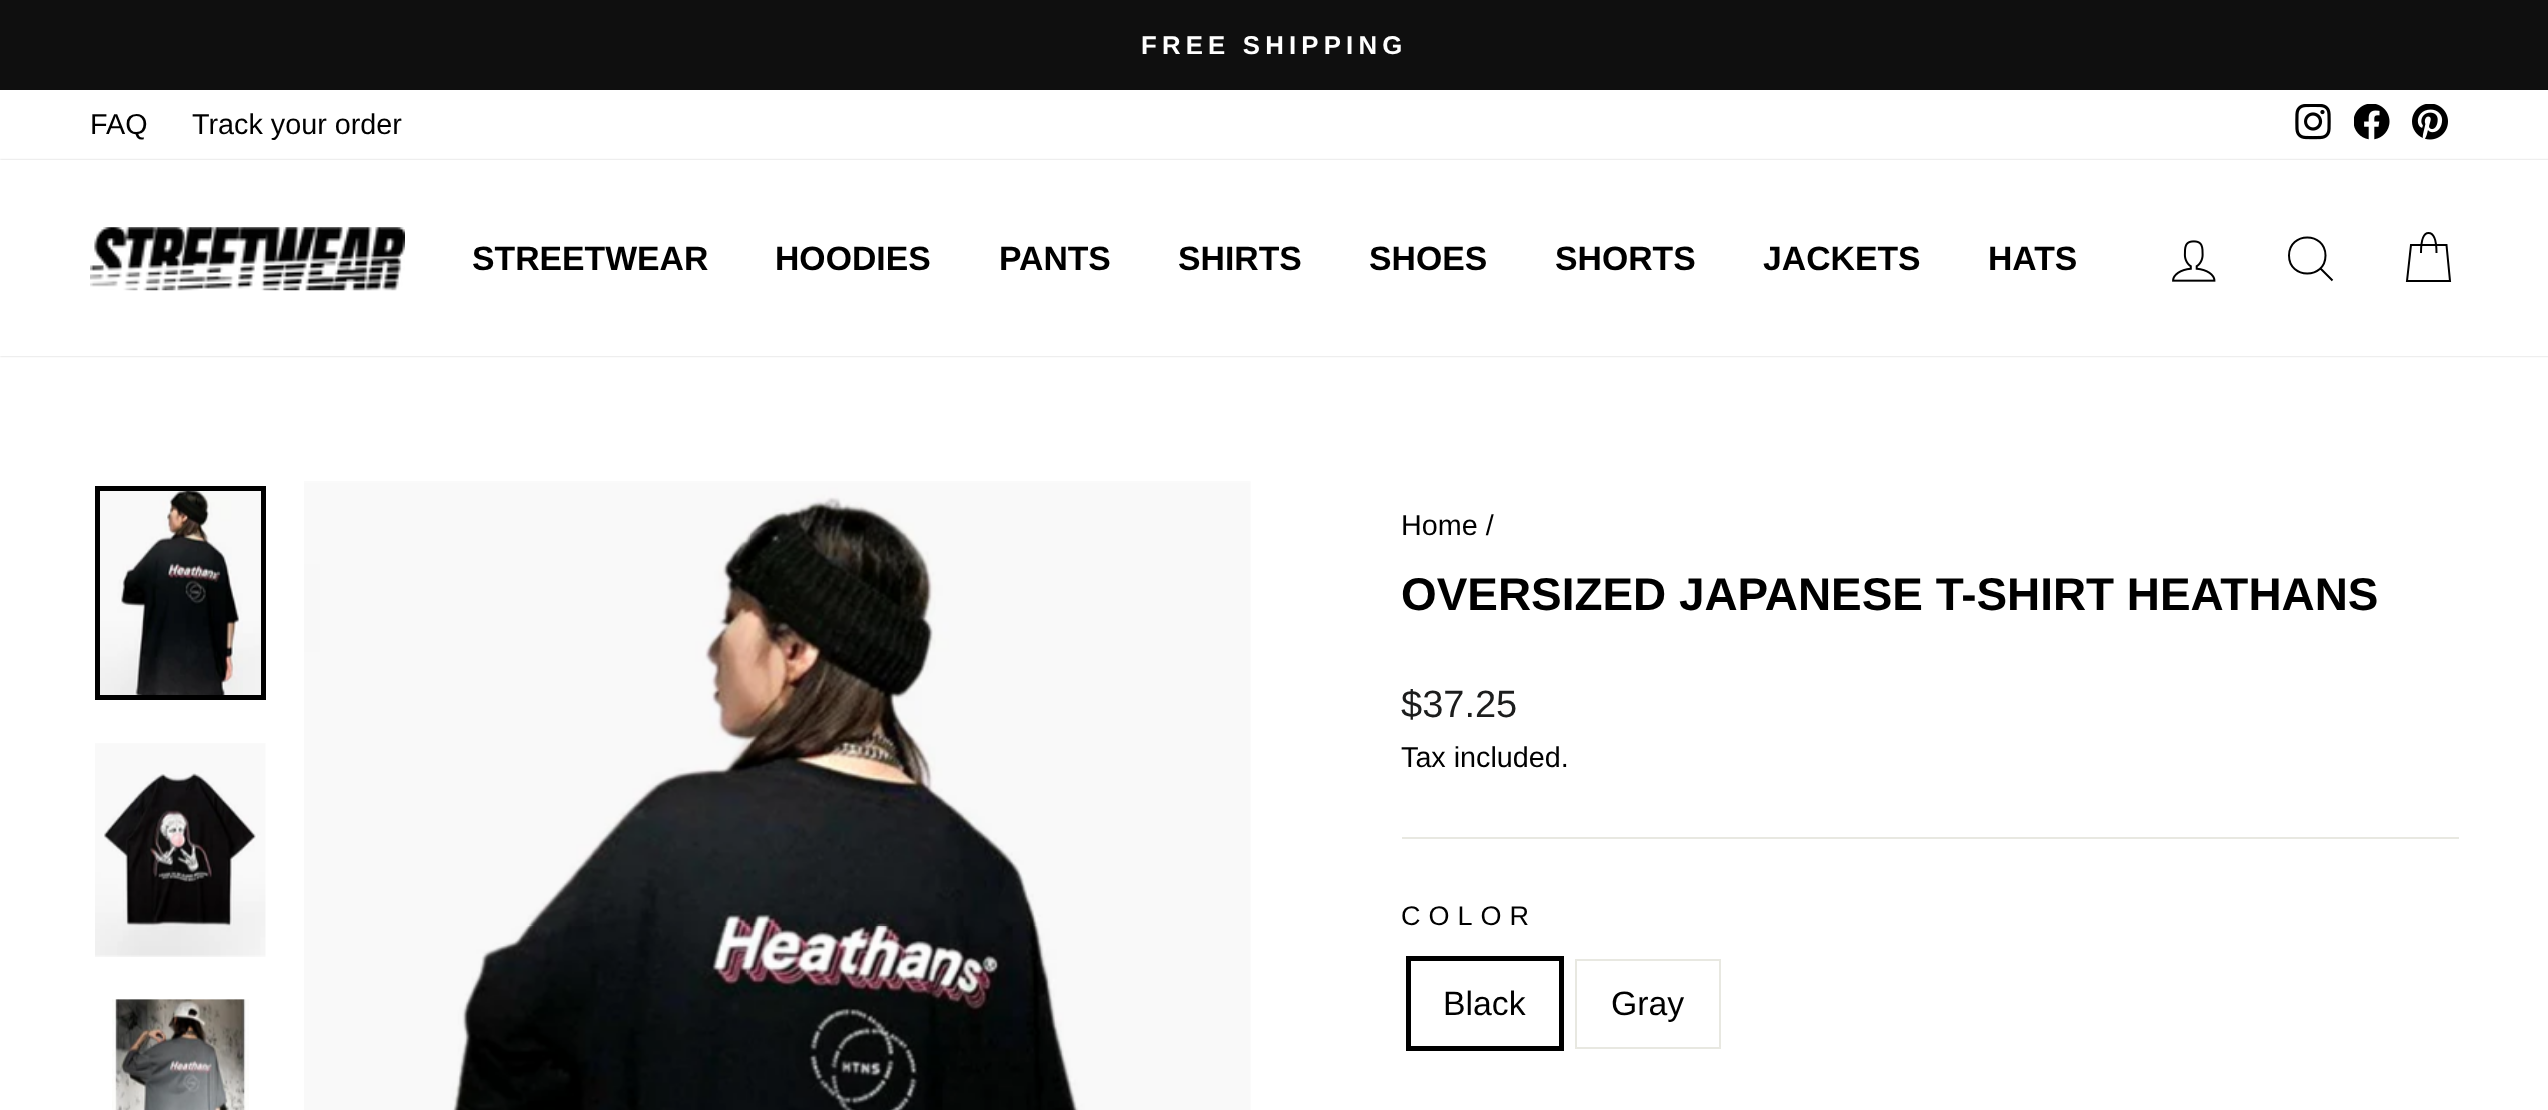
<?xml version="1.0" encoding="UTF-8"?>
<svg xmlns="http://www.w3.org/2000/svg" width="2548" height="1110">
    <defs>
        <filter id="blur1" x="-50%" y="-200%" width="200%" height="500%"><feGaussianBlur stdDeviation="1"/></filter>
    </defs>
    <rect width="100%" height="100%" fill="#FFFFFF"/>
    <rect x="0" y="0" width="2548" height="90" fill="#0F0F0F"/>
    <text x="1141" y="54" font-family="Liberation Sans" font-size="25.75" font-weight="700" letter-spacing="5.2" fill="#FFFFFF">FREE SHIPPING</text>
    <text x="90" y="134" font-family="Liberation Sans" font-size="28.75" fill="#000000">FAQ</text>
    <text x="192" y="134" font-family="Liberation Sans" font-size="28.75" fill="#000000">Track your order</text>
    <image x="2295" y="104" width="36" height="36" href="img_01.png"/>
    <image x="2354" y="104" width="36" height="36" href="img_02.png"/>
    <image x="2412" y="104" width="36" height="36" href="img_03.png"/>
    <rect x="0" y="160" width="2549" height="196" fill="#000000" fill-opacity="0.2" filter="url(#blur1)"/>
    <rect x="0" y="160" width="2548" height="196" fill="#FFFFFF"/>
    <image x="90" y="227" width="315" height="64" href="img_04.png"/>
    <text x="472" y="270" font-family="Liberation Sans" font-size="33.75" font-weight="700" fill="#000000">STREETWEAR</text>
    <text x="775" y="270" font-family="Liberation Sans" font-size="33.75" font-weight="700" fill="#000000">HOODIES</text>
    <text x="999" y="270" font-family="Liberation Sans" font-size="33.75" font-weight="700" fill="#000000">PANTS</text>
    <text x="1178" y="270" font-family="Liberation Sans" font-size="33.75" font-weight="700" fill="#000000">SHIRTS</text>
    <text x="1369" y="270" font-family="Liberation Sans" font-size="33.75" font-weight="700" fill="#000000">SHOES</text>
    <text x="1555" y="270" font-family="Liberation Sans" font-size="33.75" font-weight="700" fill="#000000">SHORTS</text>
    <text x="1763" y="270" font-family="Liberation Sans" font-size="33.75" font-weight="700" fill="#000000">JACKETS</text>
    <text x="1988" y="270" font-family="Liberation Sans" font-size="33.75" font-weight="700" fill="#000000">HATS</text>
    <image x="2172" y="240" width="44" height="42" href="img_05.png"/>
    <path d="M 2325.5 255.5 C 2325.5 279.5 2289 279.5 2289 255.5 C 2289 231.5 2325.5 231.5 2325.5 255.5 Z M 2332.5 280.5 L 2320.5 268.5" fill="none" stroke="#000000" stroke-width="2"/>
    <path d="M 2421 253 C 2421 237.5 2424.5 233 2428.5 233 C 2433 233 2436.5 237.5 2436.5 253 M 2411 245 H 2446.5 L 2450 281 H 2407 Z" fill="none" stroke="#000000" stroke-width="2"/>
    <image x="100" y="491" width="161" height="204" href="img_06.png"/>
    <rect x="97.5" y="488.5" width="166" height="209" fill="none" stroke="#000000" stroke-width="5"/>
    <image x="95" y="743" width="171" height="214" href="img_07.png"/>
    <image x="112" y="999" width="137" height="111" href="img_08.png"/>
    <image x="304" y="481" width="947" height="629" href="img_09.png"/>
    <text x="1401" y="535" font-family="Liberation Sans" font-size="28.75" fill="#000000">Home /</text>
    <text x="1401" y="610" font-family="Liberation Sans" font-size="45.9" font-weight="700" fill="#000000">OVERSIZED JAPANESE T-SHIRT HEATHANS</text>
    <text x="1401" y="717" font-family="Liberation Sans" font-size="38" fill="#1C1D1D">$37.25</text>
    <text x="1401" y="767" font-family="Liberation Sans" font-size="28.75" fill="#000000">Tax included.</text>
    <rect x="1402" y="837" width="1057" height="2" fill="#E8E8E1"/>
    <text x="1401" y="925" font-family="Liberation Sans" font-size="27" letter-spacing="8" fill="#000000">COLOR</text>
    <rect x="1408.5" y="958.5" width="153" height="90" fill="none" stroke="#000000" stroke-width="5"/>
    <text x="1443" y="1015" font-family="Liberation Sans" font-size="33.75" fill="#000000">Black</text>
    <rect x="1576" y="960" width="144" height="88" fill="none" stroke="#E8E8E1" stroke-width="2"/>
    <text x="1611" y="1015" font-family="Liberation Sans" font-size="33.75" fill="#000000">Gray</text>
</svg>
